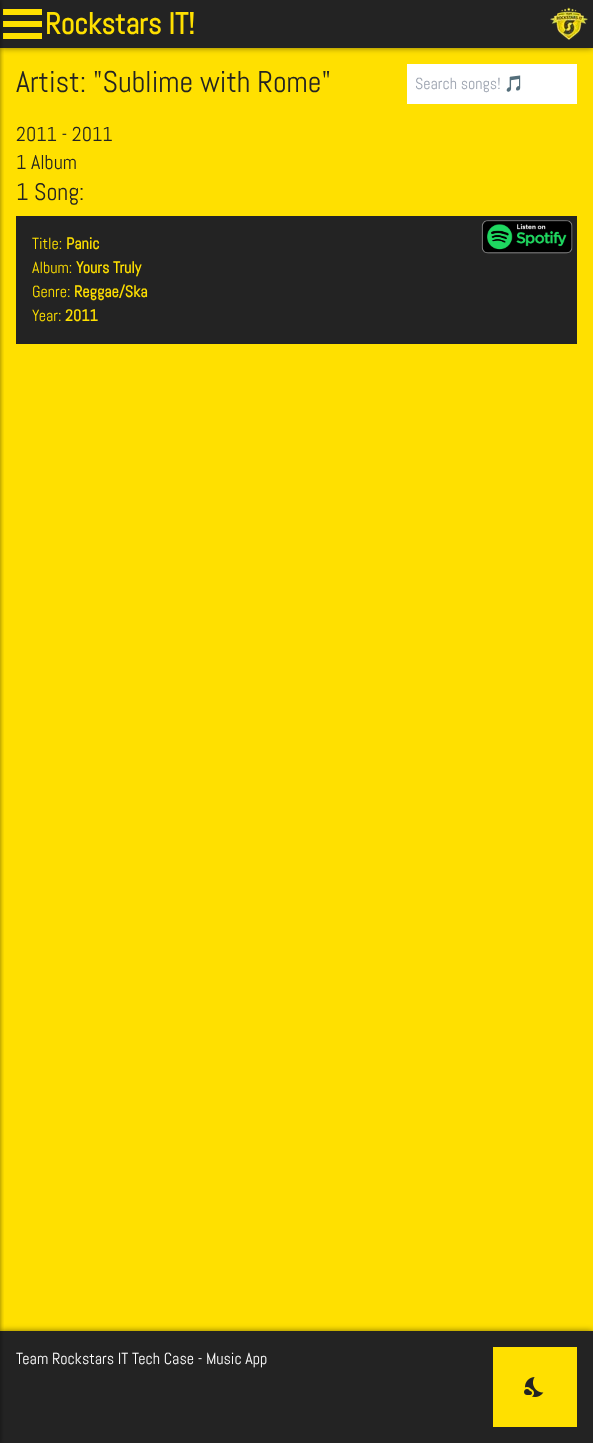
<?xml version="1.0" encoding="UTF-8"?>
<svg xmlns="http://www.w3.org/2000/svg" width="593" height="1443">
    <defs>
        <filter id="blur1" x="-50%" y="-200%" width="200%" height="500%"><feGaussianBlur stdDeviation="3"/></filter>
        <filter id="blur2" x="-50%" y="-200%" width="200%" height="500%"><feGaussianBlur stdDeviation="2.5"/></filter>
    </defs>
    <rect width="100%" height="100%" fill="#FFE000"/>
    <rect x="0" y="0" width="593" height="48" fill="#000000" fill-opacity="0.5" filter="url(#blur1)"/>
    <rect x="0" y="0" width="593" height="48" fill="#232323"/>
    <rect x="3" y="9" width="39" height="6" fill="#FFE000"/>
    <rect x="3" y="21" width="39" height="6" fill="#FFE000"/>
    <rect x="3" y="33" width="39" height="6" fill="#FFE000"/>
    <rect x="0" y="1331" width="593" height="112" fill="#000000" fill-opacity="0.5" filter="url(#blur1)"/>
    <rect x="0" y="1331" width="593" height="112" fill="#232323"/>
    <rect x="-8" y="0" width="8" height="1443" fill="#000000" fill-opacity="0.5" filter="url(#blur2)"/>
    <text x="45" y="34" font-family="Abel" font-size="30" font-weight="700" fill="#FFE000">Rockstars IT!</text>
    <image x="550" y="7" width="38" height="33" href="img_01.png"/>
    <text x="16" y="92" font-family="Abel" font-size="30" fill="#232323">Artist: "Sublime with Rome"</text>
    <rect x="407" y="64" width="170" height="40" fill="#FFFFFF"/>
    <text x="415" y="89" font-family="Abel" font-size="16" fill="#9CA3AF">Search songs!</text>
    <text x="504" y="89" font-family="Noto Color Emoji" font-size="16" fill="#9CA3AF">🎵</text>
    <text font-family="Abel" font-size="20" fill="#232323">
        <tspan x="16" y="141">2011 - 2011</tspan>
        <tspan x="16" y="169">1 Album</tspan>
    </text>
    <text x="16" y="200" font-family="Abel" font-size="24" fill="#232323">1 Song:</text>
    <rect x="16" y="216" width="561" height="128" fill="#232323"/>
    <text x="32" y="249" font-family="Abel" font-size="16" fill="#FFE000">Title:</text>
    <text x="66" y="249" font-family="Abel" font-size="16" font-weight="700" fill="#FFE000">Panic</text>
    <image x="481" y="220" width="92" height="34" href="img_02.png"/>
    <text x="32" y="273" font-family="Abel" font-size="16" fill="#FFE000">Album:</text>
    <text x="76" y="273" font-family="Abel" font-size="16" font-weight="700" fill="#FFE000">Yours Truly</text>
    <text x="32" y="297" font-family="Abel" font-size="16" fill="#FFE000">Genre:</text>
    <text x="74" y="297" font-family="Abel" font-size="16" font-weight="700" fill="#FFE000">Reggae/Ska</text>
    <text x="32" y="321" font-family="Abel" font-size="16" fill="#FFE000">Year:</text>
    <text x="65" y="321" font-family="Abel" font-size="16" font-weight="700" fill="#FFE000">2011</text>
    <text x="16" y="1364" font-family="Abel" font-size="16" fill="#FFFFFF">Team Rockstars IT Tech Case - Music App</text>
    <rect x="493" y="1347" width="84" height="80" fill="#FFE000"/>
    <image x="524" y="1377" width="20" height="20" href="img_03.png"/>
</svg>
